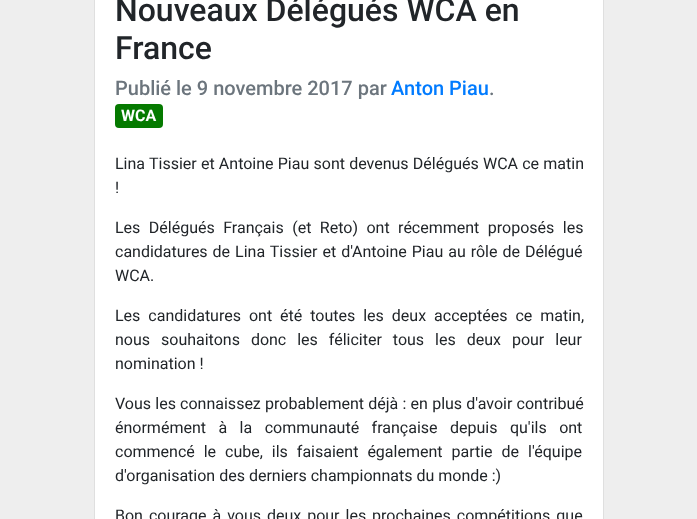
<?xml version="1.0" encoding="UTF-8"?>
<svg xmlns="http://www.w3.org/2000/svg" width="697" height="519">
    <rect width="100%" height="100%" fill="#EEEEEE"/>
    <rect x="94.5" y="-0.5" width="509" height="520" fill="#FFFFFF" stroke="#DFDFDF"/>
    <text font-family="Roboto" font-size="32" font-weight="500" fill="#212529">
        <tspan x="115" y="21">Nouveaux Délégués WCA en</tspan>
        <tspan x="115" y="59">France</tspan>
    </text>
    <text x="115" y="95" font-family="Roboto" font-size="20" font-weight="500" fill="#6C757D">Publié le 9 novembre 2017 par</text>
    <text x="391" y="95" font-family="Roboto" font-size="20" font-weight="500" fill="#007BFF">Anton Piau</text>
    <text x="489" y="95" font-family="Roboto" font-size="20" font-weight="500" fill="#6C757D">.</text>
    <rect x="115" y="104" width="48" height="24" rx="4" fill="#057A00"/>
    <text x="121" y="121" font-family="Roboto" font-size="16" font-weight="700" fill="#FFFFFF">WCA</text>
    <text font-family="Roboto" font-size="16" fill="#212529">
        <tspan x="115" y="169" word-spacing="0.25">Lina Tissier et Antoine Piau sont devenus Délégués WCA ce matin</tspan>
        <tspan x="115" y="193">!</tspan>
    </text>
    <text font-family="Roboto" font-size="16" fill="#212529">
        <tspan x="115" y="233" word-spacing="4.5">Les Délégués Français (et Reto) ont récemment proposés les</tspan>
        <tspan x="115" y="257" word-spacing="1">candidatures de Lina Tissier et d'Antoine Piau au rôle de Délégué</tspan>
        <tspan x="115" y="281">WCA.</tspan>
    </text>
    <text font-family="Roboto" font-size="16" fill="#212529">
        <tspan x="115" y="321" word-spacing="4">Les candidatures ont été toutes les deux acceptées ce matin,</tspan>
        <tspan x="115" y="345" word-spacing="7">nous souhaitons donc les féliciter tous les deux pour leur</tspan>
        <tspan x="115" y="369">nomination !</tspan>
    </text>
    <text font-family="Roboto" font-size="16" fill="#212529">
        <tspan x="115" y="409" word-spacing="0.25">Vous les connaissez probablement déjà : en plus d'avoir contribué</tspan>
        <tspan x="115" y="433" word-spacing="8.5">énormément à la communauté française depuis qu'ils ont</tspan>
        <tspan x="115" y="457" word-spacing="5">commencé le cube, ils faisaient également partie de l'équipe</tspan>
        <tspan x="115" y="481">d'organisation des derniers championnats du monde :)</tspan>
    </text>
    <text x="115" y="521" word-spacing="2" font-family="Roboto" font-size="16" fill="#212529">Bon courage à vous deux pour les prochaines compétitions que</text>
</svg>
